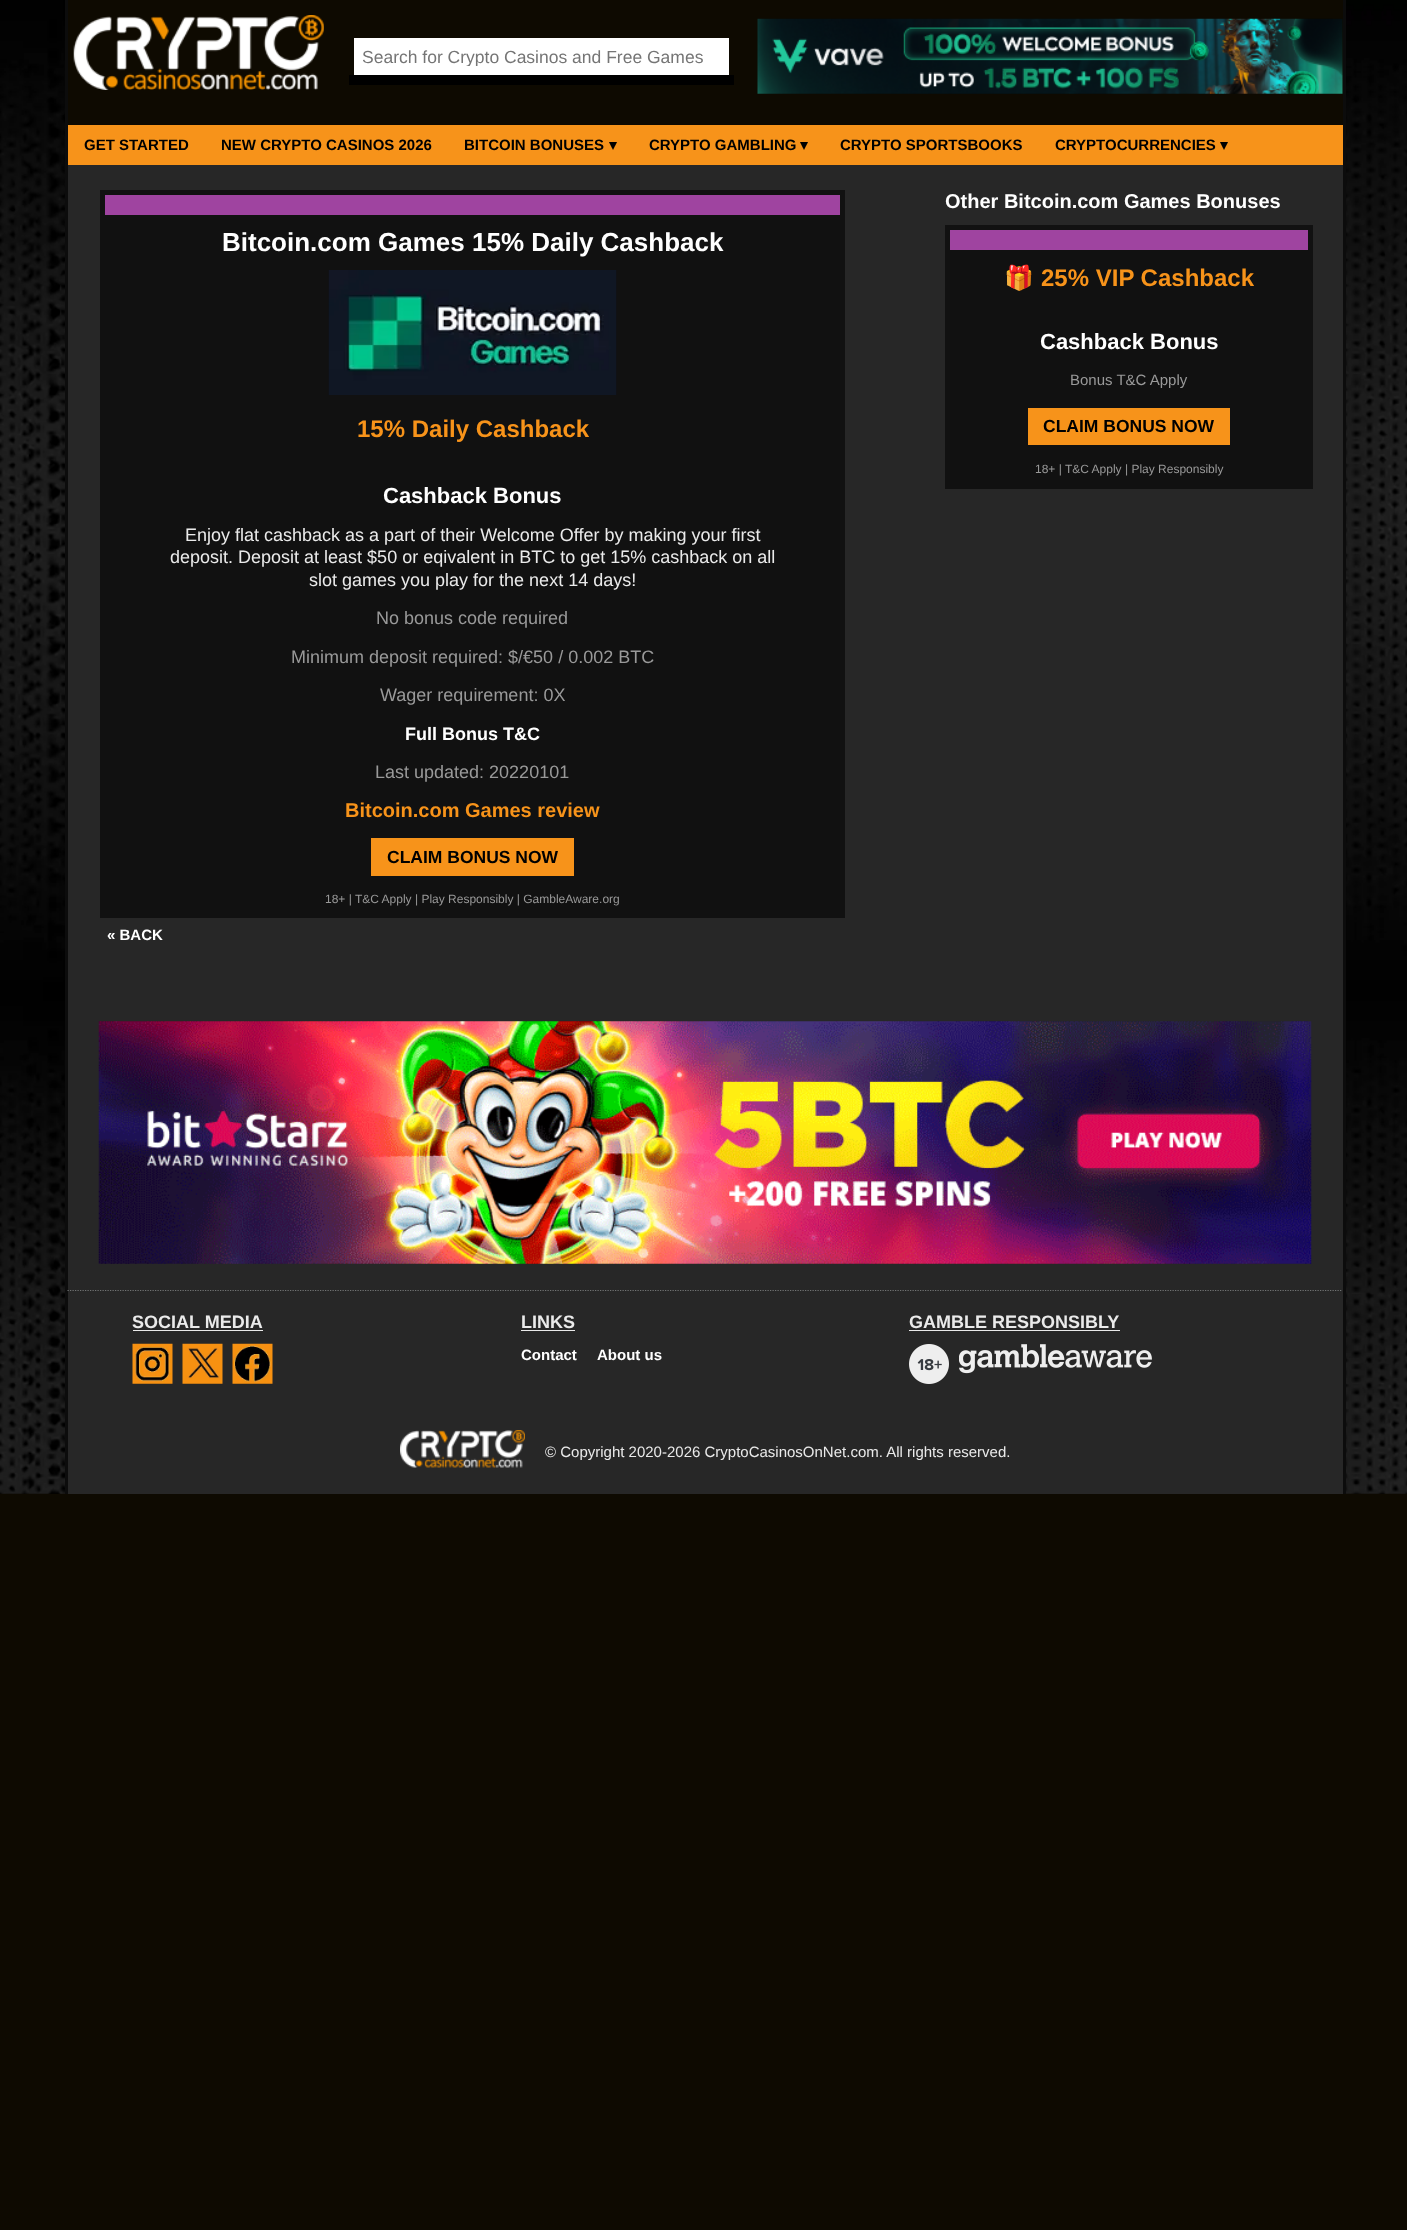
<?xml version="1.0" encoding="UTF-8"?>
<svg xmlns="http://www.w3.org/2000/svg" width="1407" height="2230">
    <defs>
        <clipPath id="clip1"><rect x="363" y="46" width="363" height="20"/></clipPath>
    </defs>
    <rect width="100%" height="100%" fill="#0E0A01"/>
    <image x="0" y="0" width="1407" height="1494" href="img_01.png"/>
    <rect x="68" y="0" width="1275" height="125" fill="#0E0A01"/>
    <rect x="1343" y="0" width="3" height="1021" fill="#0C0C0C"/>
    <rect x="65" y="0" width="3" height="1021" fill="#0C0C0C"/>
    <image x="73" y="15" width="251" height="75" href="img_02.png"/>
    <rect x="354" y="38" width="375" height="37" fill="#FFFFFF"/>
    <g clip-path="url(#clip1)">
        <text x="362" y="63" font-family="Liberation Sans" font-size="17.5" fill="#757575">Search for Crypto Casinos and Free Games</text>
    </g>
    <rect x="349" y="75" width="385" height="10" fill="#000000"/>
    <image x="757" y="18" width="586" height="76" href="img_03.png"/>
    <rect x="68" y="125" width="1275" height="40" fill="#F7931A"/>
    <text x="84" y="150" font-family="Liberation Sans" font-size="15" font-weight="700" fill="#000000">GET STARTED</text>
    <text x="221" y="150" font-family="Liberation Sans" font-size="15" font-weight="700" fill="#000000">NEW CRYPTO CASINOS 2026</text>
    <text x="464" y="150" font-family="Liberation Sans" font-size="15" font-weight="700" fill="#000000">BITCOIN BONUSES</text>
    <text x="609" y="150" font-family="DejaVu Sans" font-size="15" font-weight="700" fill="#000000">▾</text>
    <text x="649" y="150" font-family="Liberation Sans" font-size="15" font-weight="700" fill="#000000">CRYPTO GAMBLING</text>
    <text x="800" y="150" font-family="DejaVu Sans" font-size="15" font-weight="700" fill="#000000">▾</text>
    <text x="840" y="150" font-family="Liberation Sans" font-size="15" font-weight="700" fill="#000000">CRYPTO SPORTSBOOKS</text>
    <text x="1055" y="150" font-family="Liberation Sans" font-size="15" font-weight="700" fill="#000000">CRYPTOCURRENCIES</text>
    <text x="1220" y="150" font-family="DejaVu Sans" font-size="15" font-weight="700" fill="#000000">▾</text>
    <rect x="68" y="165" width="1275" height="1329" fill="#272727"/>
    <rect x="100" y="190" width="745" height="728" fill="#111111"/>
    <rect x="105" y="195" width="735" height="20" fill="#9F44A0"/>
    <text x="222" y="251" font-family="Liberation Sans" font-size="26" font-weight="700" fill="#FFFFFF">Bitcoin.com Games 15% Daily Cashback</text>
    <image x="328" y="270" width="289" height="125" href="img_04.png"/>
    <text x="357" y="437" font-family="Liberation Sans" font-size="24" font-weight="700" fill="#F7931A">15% Daily Cashback</text>
    <text x="383" y="503" font-family="Liberation Sans" font-size="22" font-weight="700" fill="#FFFFFF">Cashback Bonus</text>
    <text x="185" y="541" font-family="Liberation Sans" font-size="18" fill="#EAEAEA">Enjoy flat cashback as a part of their Welcome Offer by making your first</text>
    <text x="170" y="563" font-family="Liberation Sans" font-size="18" fill="#EAEAEA">deposit. Deposit at least $50 or eqivalent in BTC to get 15% cashback on all</text>
    <text x="309" y="586" font-family="Liberation Sans" font-size="18" fill="#EAEAEA">slot games you play for the next 14 days!</text>
    <text x="376" y="624" font-family="Liberation Sans" font-size="18" fill="#999999">No bonus code required</text>
    <text x="291" y="663" font-family="Liberation Sans" font-size="18" fill="#999999">Minimum deposit required: $/€50 / 0.002 BTC</text>
    <text x="380" y="701" font-family="Liberation Sans" font-size="18" fill="#999999">Wager requirement: 0X</text>
    <text x="405" y="740" font-family="Liberation Sans" font-size="18" font-weight="700" fill="#FFFFFF">Full Bonus T&amp;C</text>
    <text x="375" y="778" font-family="Liberation Sans" font-size="18" fill="#999999">Last updated: 20220101</text>
    <text x="345" y="817" font-family="Liberation Sans" font-size="20" font-weight="700" fill="#F7931A">Bitcoin.com Games review</text>
    <rect x="371" y="838" width="203" height="38" fill="#F7931A"/>
    <text x="387" y="863" font-family="Liberation Sans" font-size="17.5" font-weight="700" fill="#000000">CLAIM BONUS NOW</text>
    <text x="325" y="903" font-family="Liberation Sans" font-size="12" fill="#999999">18+ | T&amp;C Apply | Play Responsibly | GambleAware.org</text>
    <text x="945" y="208" font-family="Liberation Sans" font-size="20" font-weight="700" fill="#FFFFFF">Other Bitcoin.com Games Bonuses</text>
    <rect x="945" y="225" width="368" height="264" fill="#111111"/>
    <rect x="950" y="230" width="358" height="20" fill="#9F44A0"/>
    <text x="1004" y="286" font-family="Noto Color Emoji" font-size="24" font-weight="700" fill="#F7931A">🎁</text>
    <text x="1041" y="286" font-family="Liberation Sans" font-size="24" font-weight="700" fill="#F7931A">25% VIP Cashback</text>
    <text x="1040" y="349" font-family="Liberation Sans" font-size="22" font-weight="700" fill="#FFFFFF">Cashback Bonus</text>
    <text x="1070" y="385" font-family="Liberation Sans" font-size="15" fill="#999999">Bonus T&amp;C Apply</text>
    <rect x="1028" y="408" width="202" height="37" fill="#F7931A"/>
    <text x="1043" y="432" font-family="Liberation Sans" font-size="17.5" font-weight="700" fill="#000000">CLAIM BONUS NOW</text>
    <text x="1035" y="473" font-family="Liberation Sans" font-size="12" fill="#999999">18+ | T&amp;C Apply | Play Responsibly</text>
    <text x="107" y="940" font-family="Liberation Sans" font-size="15" font-weight="700" fill="#FFFFFF">« BACK</text>
    <rect x="1343" y="1021" width="3" height="473" fill="#0C0C0C"/>
    <rect x="65" y="1021" width="3" height="473" fill="#0C0C0C"/>
    <image x="98" y="1021" width="1214" height="243" href="img_05.png"/>
    <path d="M 67.5 1290.5 H 1342.5" fill="none" stroke="#727474" stroke-width="1.2" stroke-dasharray="1.25 1.25"/>
    <text x="132" y="1328" font-family="Liberation Sans" font-size="18" font-weight="700" fill="#EAEAEA">SOCIAL MEDIA</text>
    <rect x="133" y="1330" width="130" height="1" fill="#EAEAEA"/>
    <image x="132" y="1343" width="41" height="41" href="img_06.png"/>
    <image x="182" y="1343" width="41" height="41" href="img_07.png"/>
    <image x="232" y="1343" width="41" height="41" href="img_08.png"/>
    <text x="521" y="1328" font-family="Liberation Sans" font-size="18" font-weight="700" fill="#EAEAEA">LINKS</text>
    <rect x="521" y="1330" width="54" height="1" fill="#EAEAEA"/>
    <text x="521" y="1360" font-family="Liberation Sans" font-size="15" font-weight="700" fill="#FFFFFF">Contact</text>
    <text x="597" y="1360" font-family="Liberation Sans" font-size="15" font-weight="700" fill="#FFFFFF">About us</text>
    <text x="909" y="1328" font-family="Liberation Sans" font-size="18" font-weight="700" fill="#EAEAEA">GAMBLE RESPONSIBLY</text>
    <rect x="909" y="1330" width="211" height="1" fill="#EAEAEA"/>
    <image x="909" y="1344" width="40" height="40" href="img_09.png"/>
    <image x="959" y="1344" width="193" height="30" href="img_10.png"/>
    <image x="400" y="1430" width="125" height="38" href="img_11.png"/>
    <text x="545" y="1457" font-family="Liberation Sans" font-size="15" fill="#EAEAEA">© Copyright 2020-2026 CryptoCasinosOnNet.com. All rights reserved.</text>
</svg>
